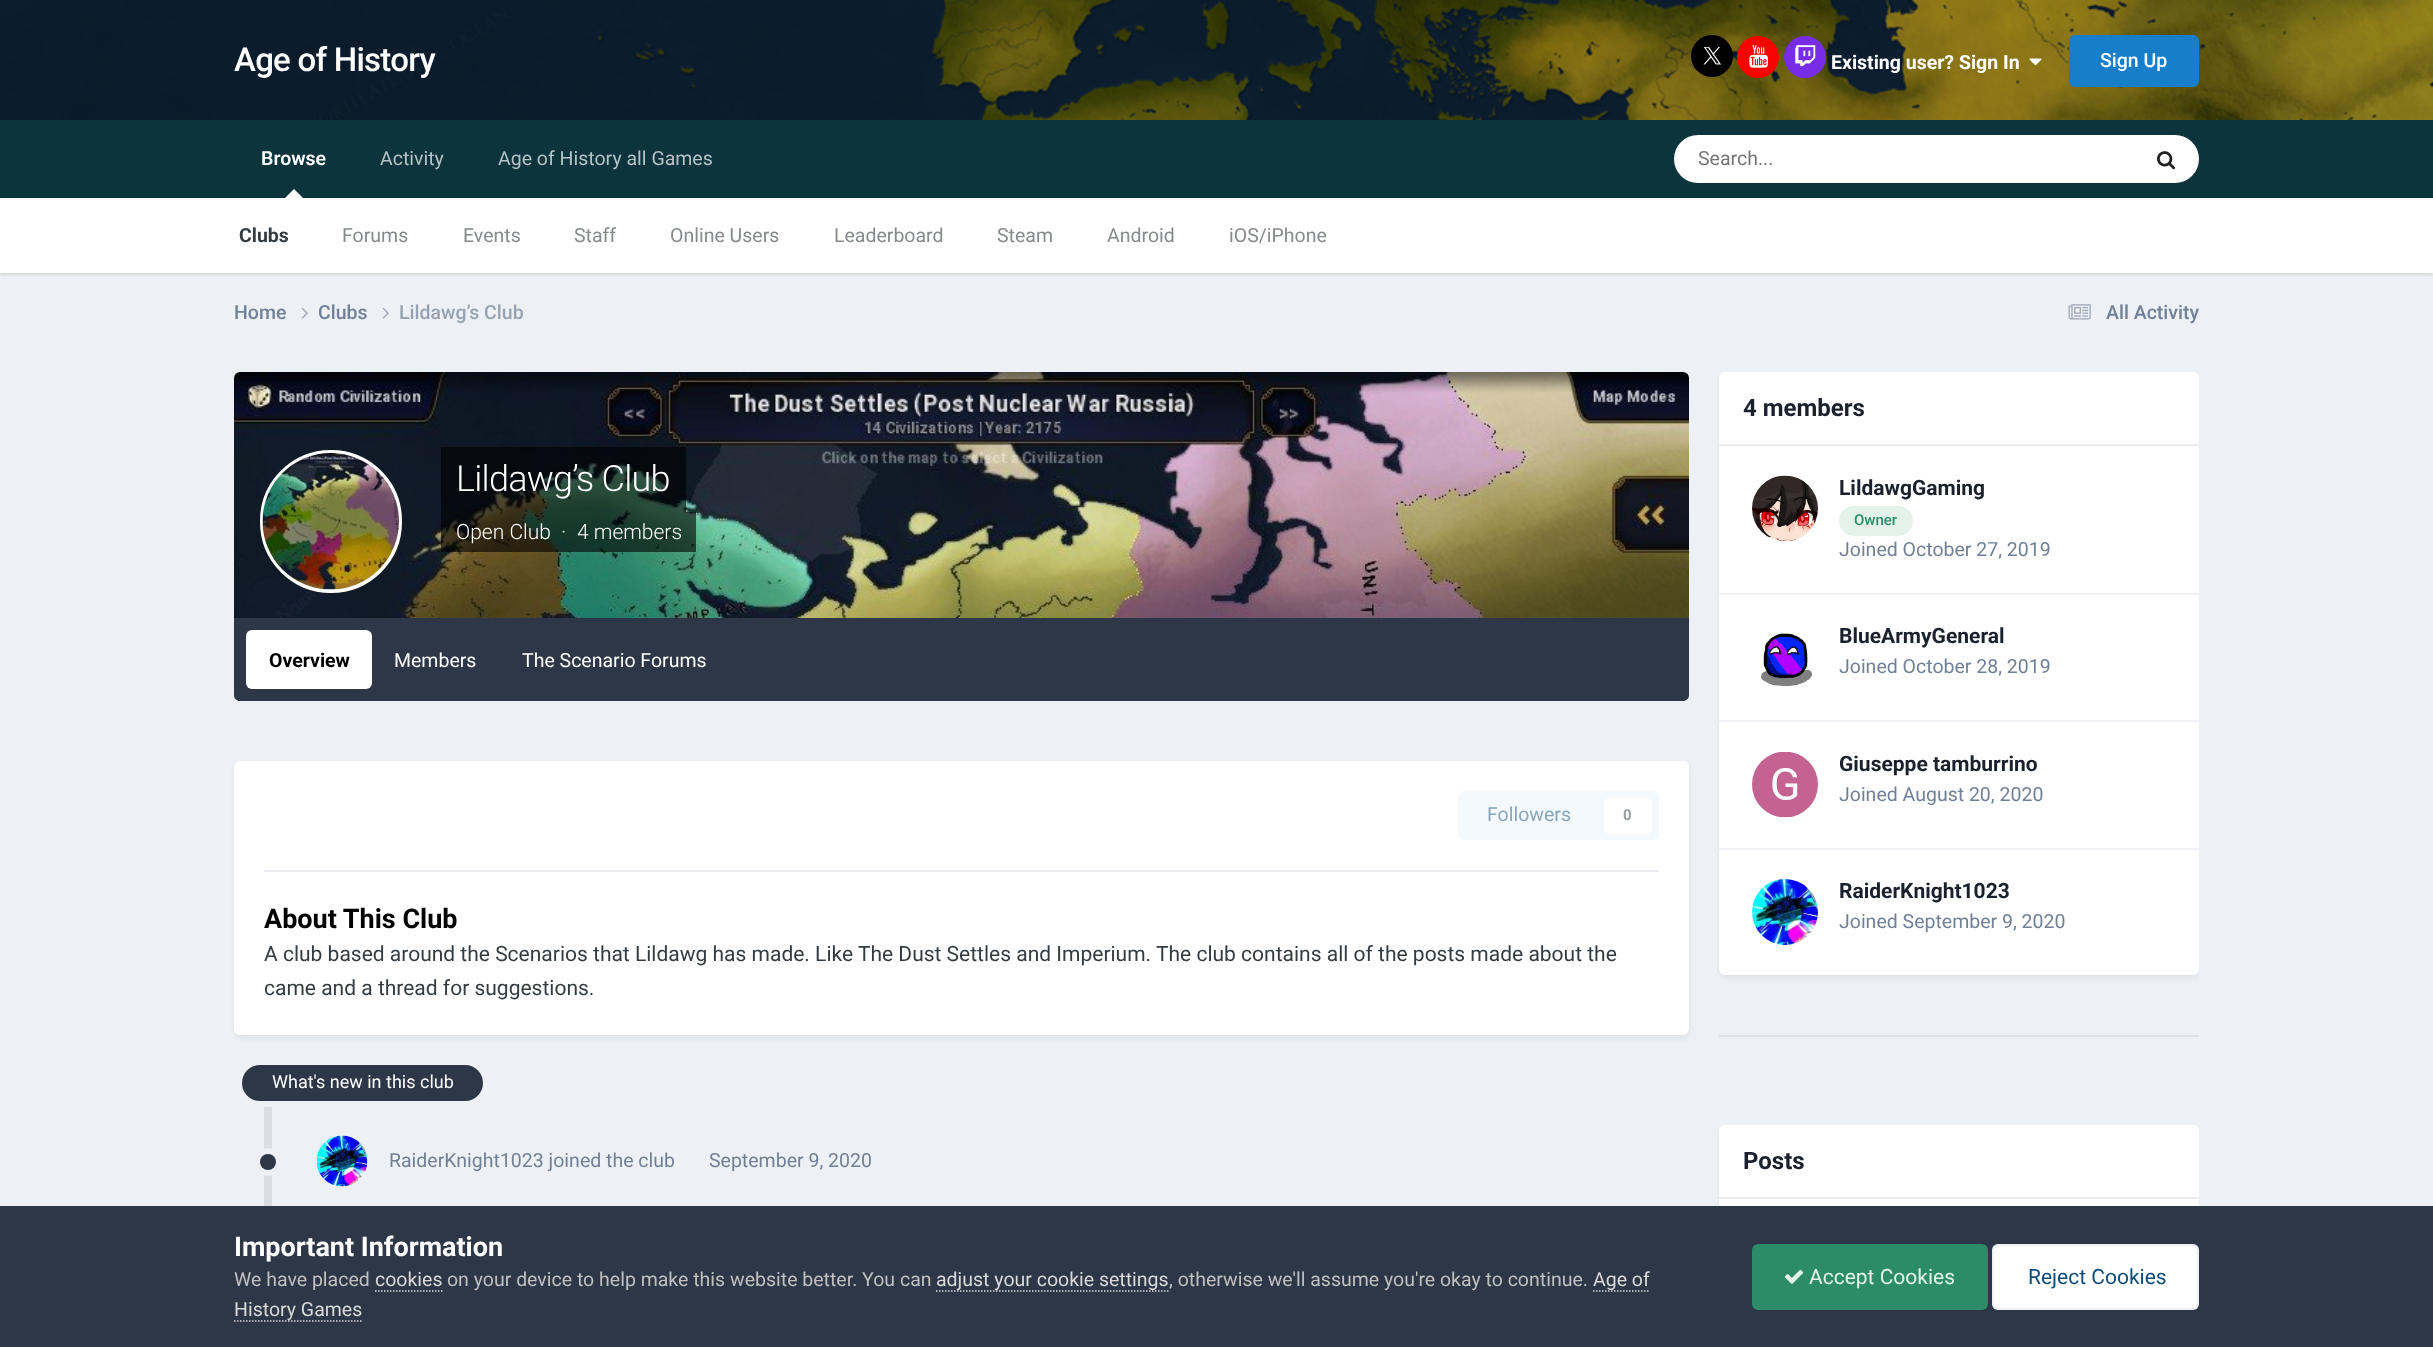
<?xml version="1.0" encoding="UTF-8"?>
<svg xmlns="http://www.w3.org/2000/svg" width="2433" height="1347">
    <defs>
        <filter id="blur1" x="-50%" y="-200%" width="200%" height="500%"><feGaussianBlur stdDeviation="1.5"/></filter>
        <filter id="blur2" x="-50%" y="-200%" width="200%" height="500%"><feGaussianBlur stdDeviation="3"/></filter>
        <clipPath id="clip1"><rect x="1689" y="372" width="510" height="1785"/></clipPath>
    </defs>
    <rect width="100%" height="100%" fill="#EDF0F4"/>
    <image x="0" y="0" width="2433" height="120" href="img_01.png"/>
    <text x="234" y="71" font-family="Roboto" font-size="33" font-weight="500" letter-spacing="-0.75" fill="#FFFFFF">Age of History</text>
    <circle cx="1712" cy="56" r="21" fill="#000000"/>
    <image x="1703" y="47" width="18" height="18" href="img_02.png"/>
    <circle cx="1758" cy="57" r="21" fill="#FF0000"/>
    <image x="1749" y="45" width="19" height="23" href="img_03.png"/>
    <circle cx="1805" cy="57" r="21" fill="#772CE8"/>
    <image x="1795" y="45" width="21" height="22" href="img_04.png"/>
    <text x="1831" y="69" font-family="Roboto" font-size="19.5" font-weight="700" fill="#FFFFFF">Existing user? Sign In</text>
    <image x="2029" y="58" width="13" height="8" href="img_05.png"/>
    <rect x="2069" y="35" width="130" height="52" rx="6" fill="#177EC9"/>
    <text x="2100" y="67" font-family="Roboto" font-size="19.5" font-weight="500" fill="#FFFFFF">Sign Up</text>
    <rect x="0" y="120" width="2433" height="78" fill="#0C343D"/>
    <text x="380" y="165" font-family="Roboto" font-size="19.5" fill="#B6C2C5">Activity</text>
    <text x="498" y="165" font-family="Roboto" font-size="19.5" fill="#B6C2C5">Age of History all Games</text>
    <text x="261" y="165" font-family="Roboto" font-size="19.5" font-weight="600" fill="#FFFFFF">Browse</text>
    <rect x="0" y="200" width="2433" height="75" fill="#000000" fill-opacity="0.1" filter="url(#blur1)"/>
    <path d="M 303 198 H 285 L 294 189 Z" fill="#FFFFFF"/>
    <rect x="0" y="198" width="2433" height="75" fill="#FFFFFF"/>
    <text x="239" y="242" font-family="Roboto" font-size="19.5" font-weight="700" fill="#353C41">Clubs</text>
    <text x="342" y="242" font-family="Roboto" font-size="19.5" fill="#868A8D">Forums</text>
    <text x="463" y="242" font-family="Roboto" font-size="19.5" fill="#868A8D">Events</text>
    <text x="574" y="242" font-family="Roboto" font-size="19.5" fill="#868A8D">Staff</text>
    <text x="670" y="242" font-family="Roboto" font-size="19.5" fill="#868A8D">Online Users</text>
    <text x="834" y="242" font-family="Roboto" font-size="19.5" fill="#868A8D">Leaderboard</text>
    <text x="997" y="242" font-family="Roboto" font-size="19.5" fill="#868A8D">Steam</text>
    <text x="1107" y="242" font-family="Roboto" font-size="19.5" fill="#868A8D">Android</text>
    <text x="1229" y="242" font-family="Roboto" font-size="19.5" fill="#868A8D">iOS/iPhone</text>
    <rect x="1674" y="135" width="525" height="48" rx="24" fill="#FFFFFF"/>
    <text x="1698" y="165" font-family="Roboto" font-size="19.5" fill="#757575">Search...</text>
    <image x="2157" y="151" width="19" height="19" href="img_06.png"/>
    <text x="234" y="319" font-family="Roboto" font-size="19.5" font-weight="500" fill="#718096">Home</text>
    <image x="301" y="307" width="7" height="12" href="img_07.png"/>
    <text x="318" y="319" font-family="Roboto" font-size="19.5" font-weight="500" fill="#718096">Clubs</text>
    <image x="382" y="307" width="7" height="12" href="img_07.png"/>
    <text x="399" y="319" font-family="Roboto" font-size="19.5" font-weight="500" fill="#96A2B2">Lildawg’s Club</text>
    <image x="2068" y="304" width="23" height="16" href="img_08.png"/>
    <text x="2106" y="319" font-family="Roboto" font-size="19.5" font-weight="500" fill="#718096">All Activity</text>
    <image x="234" y="372" width="1455" height="246" href="img_09.png"/>
    <rect x="261.5" y="451.5" width="139" height="140" rx="69.5" fill="#FFFFFF" stroke="#FFFFFF" stroke-width="3"/>
    <image x="262" y="453" width="137" height="137" href="img_10.png"/>
    <rect x="441" y="447" width="245" height="65" fill="#000000" fill-opacity="0.6"/>
    <text x="456" y="491" font-family="Roboto" font-size="36" font-weight="300" letter-spacing="-0.75" fill="#FFFFFF">Lildawg’s Club</text>
    <rect x="441" y="512" width="255" height="40" fill="#000000" fill-opacity="0.6"/>
    <text x="456" y="539" font-family="Roboto" font-size="21" font-weight="300" fill="#FFFFFF">Open Club</text>
    <text x="561" y="539" font-family="Roboto" font-size="21" font-weight="300" fill="#FFFFFF">·</text>
    <text x="577" y="539" font-family="Roboto" font-size="21" font-weight="300" fill="#FFFFFF">4 members</text>
    <path d="M 234 618 H 1689 V 695 C 1689 698.5 1686.5 701 1683 701 H 240 C 236.5 701 234 698.5 234 695 Z" fill="#2D3748"/>
    <rect x="246" y="630" width="126" height="59" rx="6" fill="#FFFFFF"/>
    <text x="269" y="667" font-family="Roboto" font-size="19.5" font-weight="700" fill="#000000">Overview</text>
    <text x="394" y="667" font-family="Roboto" font-size="19.5" fill="#FFFFFF">Members</text>
    <text x="522" y="667" font-family="Roboto" font-size="19.5" fill="#FFFFFF">The Scenario Forums</text>
    <rect x="236" y="765" width="1452" height="272" rx="5" fill="#2D3748" fill-opacity="0.1" filter="url(#blur2)"/>
    <rect x="234" y="761" width="1455" height="274" rx="6" fill="#FFFFFF"/>
    <rect x="264" y="870" width="1395" height="2" fill="#EAECEF"/>
    <rect x="1458" y="791" width="201" height="49" rx="6" fill="#F4F9FD"/>
    <text x="1487" y="821" font-family="Roboto" font-size="19.5" fill="#87A6BC">Followers</text>
    <rect x="1604" y="798" width="48" height="36" rx="6" fill="#FFFFFF"/>
    <text x="1623" y="820" font-family="Roboto" font-size="15" font-weight="700" fill="#9A9EA0">0</text>
    <text x="264" y="928" font-family="Roboto" font-size="27" font-weight="700" fill="#000000">About This Club</text>
    <text x="264" y="961" font-family="Roboto" font-size="21" fill="#353C41">A club based around the Scenarios that Lildawg has made. Like The Dust Settles and Imperium.</text>
    <text x="1156" y="961" font-family="Roboto" font-size="21" fill="#353C41">The club contains all of the posts made about the</text>
    <text x="264" y="995" font-family="Roboto" font-size="21" fill="#353C41">came and a thread for suggestions.</text>
    <rect x="264" y="1107" width="8" height="99" fill="#DADEE3"/>
    <rect x="242" y="1065" width="241" height="36" rx="18" fill="#2D3748"/>
    <text x="272" y="1088" font-family="Roboto" font-size="18" fill="#FFFFFF">What's new in this club</text>
    <circle cx="268" cy="1162" r="11" fill="none" stroke="#EDF0F4" stroke-width="6"/>
    <circle cx="268" cy="1162" r="8" fill="#2D3748"/>
    <circle cx="342.5" cy="1161.5" r="25.5" fill="#FFFFFF"/>
    <image x="316" y="1135" width="52" height="52" href="img_11.png"/>
    <text x="389" y="1167" font-family="Roboto" font-size="19.5" fill="#718096">RaiderKnight1023 joined the club</text>
    <text x="709" y="1167" font-family="Roboto" font-size="19.5" fill="#718096">September 9, 2020</text>
    <g clip-path="url(#clip1)">
        <rect x="1721" y="377" width="477" height="600" rx="5" fill="#2D3748" fill-opacity="0.1" filter="url(#blur2)"/>
    </g>
    <rect x="1719" y="372" width="480" height="603" rx="6" fill="#FFFFFF"/>
    <path d="M 1725 372 H 2193 C 2196.5 372 2199 374.5 2199 378 V 446 H 1719 V 378 C 1719 374.5 1721.5 372 1725 372 Z" fill="#FFFFFF"/>
    <rect x="1719" y="444" width="480" height="2" fill="#EAECEF"/>
    <text x="1743" y="416" font-family="Roboto" font-size="24" font-weight="700" fill="#1A202C">4 members</text>
    <rect x="1719" y="593" width="480" height="2" fill="#F1F2F5"/>
    <image x="1752" y="475" width="66" height="67" href="img_12.png"/>
    <text x="1839" y="495" font-family="Roboto" font-size="21" font-weight="700" fill="#1A202C">LildawgGaming</text>
    <rect x="1839" y="506" width="74" height="30" rx="15" fill="#E3F3EC"/>
    <text x="1854" y="525" font-family="Roboto" font-size="15" font-weight="500" fill="#2C8C69">Owner</text>
    <text x="1839" y="556" font-family="Roboto" font-size="19.5" fill="#718096">Joined October 27, 2019</text>
    <rect x="1719" y="720" width="480" height="2" fill="#F1F2F5"/>
    <image x="1761" y="633" width="51" height="54" href="img_13.png"/>
    <text x="1839" y="643" font-family="Roboto" font-size="21" font-weight="700" fill="#1A202C">BlueArmyGeneral</text>
    <text x="1839" y="673" font-family="Roboto" font-size="19.5" fill="#718096">Joined October 28, 2019</text>
    <rect x="1719" y="848" width="480" height="2" fill="#F1F2F5"/>
    <image x="1752" y="752" width="66" height="66" href="img_14.png"/>
    <text x="1839" y="771" font-family="Roboto" font-size="21" font-weight="700" fill="#1A202C">Giuseppe tamburrino</text>
    <text x="1839" y="801" font-family="Roboto" font-size="19.5" fill="#718096">Joined August 20, 2020</text>
    <image x="1752" y="879" width="66" height="66" href="img_15.png"/>
    <text x="1839" y="898" font-family="Roboto" font-size="21" font-weight="700" fill="#1A202C">RaiderKnight1023</text>
    <text x="1839" y="928" font-family="Roboto" font-size="19.5" fill="#718096">Joined September 9, 2020</text>
    <rect x="1719" y="1035" width="480" height="2" fill="#DEE2E6"/>
    <g clip-path="url(#clip1)">
        <rect x="1721" y="1130" width="477" height="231" rx="5" fill="#2D3748" fill-opacity="0.1" filter="url(#blur2)"/>
    </g>
    <rect x="1719" y="1125" width="480" height="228" rx="6" fill="#FFFFFF"/>
    <path d="M 1725 1125 H 2193 C 2196.5 1125 2199 1127.5 2199 1131 V 1199 H 1719 V 1131 C 1719 1127.5 1721.5 1125 1725 1125 Z" fill="#FFFFFF"/>
    <rect x="1719" y="1197" width="480" height="2" fill="#EAECEF"/>
    <text x="1743" y="1169" font-family="Roboto" font-size="24" font-weight="700" fill="#1A202C">Posts</text>
    <rect x="0" y="1206" width="2433" height="141" fill="#2D3748"/>
    <text x="234" y="1256" font-family="Roboto" font-size="27" font-weight="700" fill="#FFFFFF">Important Information</text>
    <text x="234" y="1286" font-family="Roboto" font-size="19.5" fill="#C0C0C0">We have placed</text>
    <text x="375" y="1286" font-family="Roboto" font-size="19.5" fill="#DADADA">cookies</text>
    <path d="M 375 1291 H 442.5" fill="none" stroke="#DADADA" stroke-width="1.5" stroke-dasharray="1.5 1.5"/>
    <text x="447" y="1286" font-family="Roboto" font-size="19.5" fill="#C0C0C0">on your device to help make this website better. You can</text>
    <path d="M 936 1291 H 1168.5" fill="none" stroke="#DADADA" stroke-width="1.5" stroke-dasharray="1.5 1.5"/>
    <text x="936" y="1286" font-family="Roboto" font-size="19.5" fill="#DADADA">adjust your cookie settings</text>
    <text x="1169" y="1286" font-family="Roboto" font-size="19.5" fill="#C0C0C0">, otherwise we'll assume you're okay to continue.</text>
    <path d="M 1593 1291 H 1650" fill="none" stroke="#DADADA" stroke-width="1.5" stroke-dasharray="1.5 1.5"/>
    <text x="1593" y="1286" font-family="Roboto" font-size="19.5" fill="#DADADA">Age of</text>
    <path d="M 234 1321 H 363" fill="none" stroke="#DADADA" stroke-width="1.5" stroke-dasharray="1.5 1.5"/>
    <text x="234" y="1316" font-family="Roboto" font-size="19.5" fill="#DADADA">History Games</text>
    <rect x="1752" y="1244" width="236" height="66" rx="6" fill="#2C8C69"/>
    <image x="1784" y="1269" width="20" height="15" href="img_16.png"/>
    <text x="1809" y="1284" font-family="Roboto" font-size="21" fill="#E3F3EC">Accept Cookies</text>
    <rect x="1992" y="1244" width="207" height="66" rx="6" fill="#FFFFFF"/>
    <rect x="1993" y="1245" width="205" height="64" rx="5" fill="none" stroke="#0E4C79" stroke-opacity="0.07" stroke-width="2"/>
    <text x="2028" y="1284" font-family="Roboto" font-size="21" fill="#0E4C79">Reject Cookies</text>
</svg>
